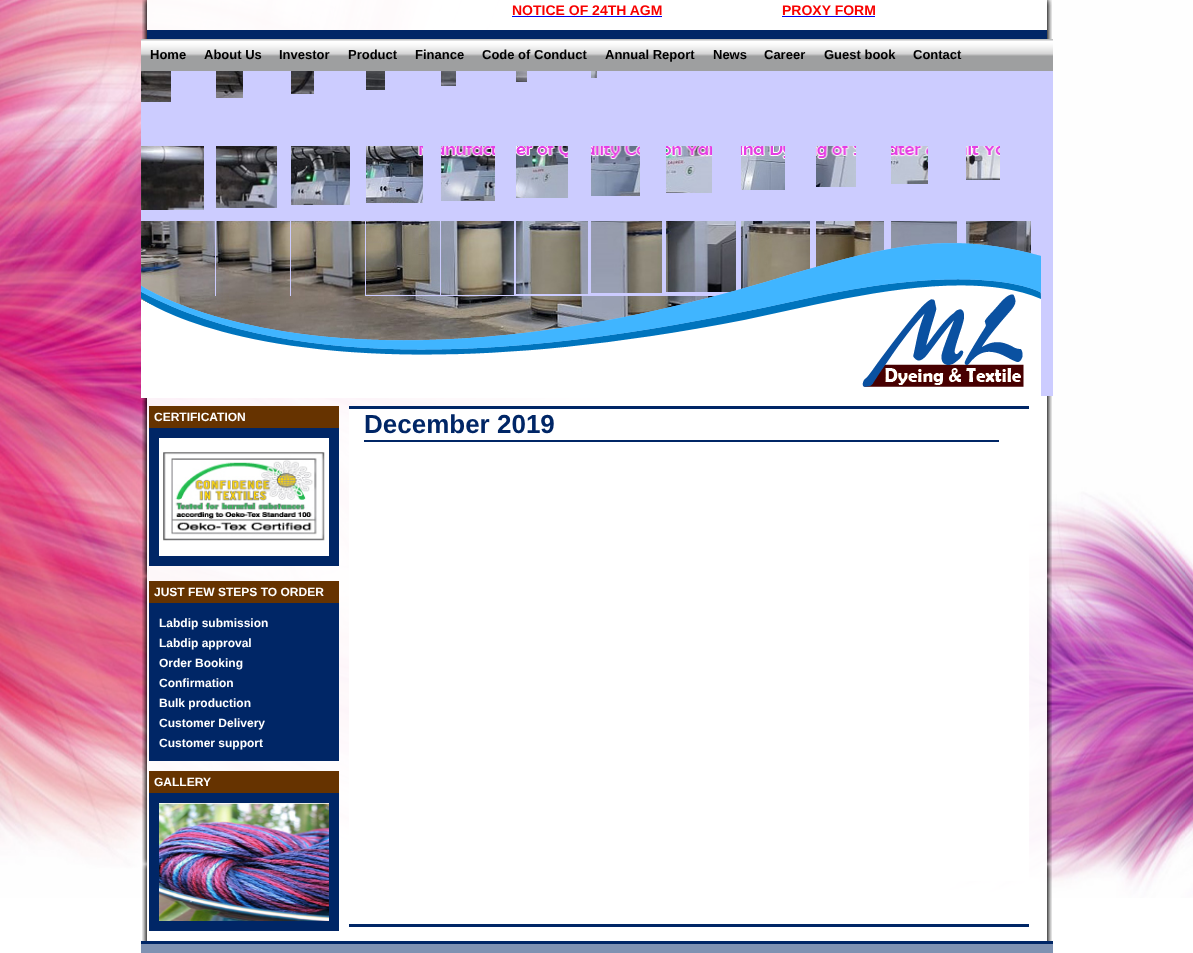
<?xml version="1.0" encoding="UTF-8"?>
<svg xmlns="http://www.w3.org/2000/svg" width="1193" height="953">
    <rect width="100%" height="100%" fill="#FFFFFF"/>
    <image x="0" y="0" width="1193" height="898" href="img_01.png"/>
    <image x="142" y="0" width="910" height="941" href="img_02.png"/>
    <image x="142" y="0" width="910" height="941" href="img_03.png"/>
    <text x="512" y="15" font-family="Liberation Sans" font-size="14" font-weight="700" fill="#F70000">NOTICE OF 24TH AGM</text>
    <rect x="512" y="16" width="150" height="1" fill="#0000EE"/>
    <text x="782" y="15" font-family="Liberation Sans" font-size="14" font-weight="700" fill="#F70000">PROXY FORM</text>
    <rect x="782" y="16" width="93" height="1" fill="#0000EE"/>
    <rect x="147" y="30" width="900" height="9" fill="#002666"/>
    <image x="141" y="39" width="912" height="32" href="img_04.png"/>
    <text x="150" y="59" font-family="Liberation Sans" font-size="13" font-weight="700" fill="#000000">Home</text>
    <text x="204" y="59" font-family="Liberation Sans" font-size="13" font-weight="700" fill="#000000">About Us</text>
    <text x="279" y="59" font-family="Liberation Sans" font-size="13" font-weight="700" fill="#000000">Investor</text>
    <text x="348" y="59" font-family="Liberation Sans" font-size="13" font-weight="700" fill="#000000">Product</text>
    <text x="415" y="59" font-family="Liberation Sans" font-size="13" font-weight="700" fill="#000000">Finance</text>
    <text x="482" y="59" font-family="Liberation Sans" font-size="13" font-weight="700" fill="#000000">Code of Conduct</text>
    <text x="605" y="59" font-family="Liberation Sans" font-size="13" font-weight="700" fill="#000000">Annual Report</text>
    <text x="713" y="59" font-family="Liberation Sans" font-size="13" font-weight="700" fill="#000000">News</text>
    <text x="764" y="59" font-family="Liberation Sans" font-size="13" font-weight="700" fill="#000000">Career</text>
    <text x="824" y="59" font-family="Liberation Sans" font-size="13" font-weight="700" fill="#000000">Guest book</text>
    <text x="913" y="59" font-family="Liberation Sans" font-size="13" font-weight="700" fill="#000000">Contact</text>
    <rect x="141" y="71" width="912" height="325" fill="#CCCCFF"/>
    <image x="141" y="71" width="30" height="31" href="img_05.png"/>
    <image x="216" y="71" width="27" height="27" href="img_06.png"/>
    <image x="291" y="71" width="23" height="23" href="img_07.png"/>
    <image x="366" y="71" width="19" height="19" href="img_08.png"/>
    <image x="441" y="71" width="15" height="15" href="img_09.png"/>
    <image x="516" y="71" width="11" height="11" href="img_10.png"/>
    <image x="591" y="71" width="6" height="7" href="img_11.png"/>
    <image x="141" y="146" width="63" height="64" href="img_12.png"/>
    <image x="216" y="146" width="61" height="62" href="img_13.png"/>
    <image x="291" y="146" width="59" height="59" href="img_14.png"/>
    <image x="366" y="146" width="57" height="57" href="img_15.png"/>
    <image x="441" y="146" width="54" height="55" href="img_16.png"/>
    <image x="516" y="146" width="52" height="52" href="img_17.png"/>
    <image x="591" y="146" width="49" height="50" href="img_18.png"/>
    <image x="666" y="146" width="46" height="47" href="img_19.png"/>
    <image x="741" y="146" width="44" height="44" href="img_20.png"/>
    <image x="816" y="146" width="40" height="41" href="img_21.png"/>
    <image x="891" y="146" width="37" height="38" href="img_22.png"/>
    <image x="966" y="146" width="34" height="34" href="img_23.png"/>
    <image x="141" y="221" width="74" height="75" href="img_24.png"/>
    <image x="216" y="221" width="74" height="75" href="img_25.png"/>
    <image x="291" y="221" width="74" height="75" href="img_26.png"/>
    <image x="366" y="221" width="74" height="74" href="img_27.png"/>
    <image x="441" y="221" width="73" height="74" href="img_28.png"/>
    <image x="516" y="221" width="72" height="73" href="img_29.png"/>
    <image x="591" y="221" width="71" height="72" href="img_30.png"/>
    <image x="666" y="221" width="70" height="71" href="img_31.png"/>
    <image x="741" y="221" width="69" height="68" href="img_32.png"/>
    <image x="816" y="221" width="68" height="46" href="img_33.png"/>
    <image x="891" y="221" width="66" height="28" href="img_34.png"/>
    <image x="966" y="221" width="65" height="33" href="img_35.png"/>
    <image x="141" y="296" width="75" height="21" href="img_36.png"/>
    <image x="216" y="296" width="75" height="37" href="img_37.png"/>
    <image x="291" y="296" width="75" height="44" href="img_38.png"/>
    <image x="366" y="296" width="75" height="45" href="img_39.png"/>
    <image x="441" y="296" width="75" height="44" href="img_40.png"/>
    <image x="516" y="296" width="75" height="38" href="img_41.png"/>
    <image x="591" y="296" width="75" height="27" href="img_42.png"/>
    <image x="666" y="296" width="49" height="12" href="img_43.png"/>
    <image x="141" y="243" width="900" height="155" href="img_44.png"/>
    <image x="862" y="294" width="162" height="93" href="img_45.png"/>
    <rect x="149" y="428" width="190" height="138" fill="#002666"/>
    <rect x="149" y="406" width="190" height="22" fill="#663300"/>
    <text x="154" y="421" font-family="Liberation Sans" font-size="12" font-weight="700" fill="#FFFFFF">CERTIFICATION</text>
    <rect x="159" y="438" width="170" height="118" fill="#FFFFFF"/>
    <image x="163" y="452" width="162" height="89" href="img_46.png"/>
    <rect x="149" y="603" width="190" height="158" fill="#002666"/>
    <rect x="149" y="581" width="190" height="22" fill="#663300"/>
    <text x="154" y="596" font-family="Liberation Sans" font-size="12" font-weight="700" fill="#FFFFFF">JUST FEW STEPS TO ORDER</text>
    <text font-family="Liberation Sans" font-size="12" font-weight="700" fill="#FFFFFF">
        <tspan x="159" y="627">Labdip submission</tspan>
        <tspan x="159" y="647">Labdip approval</tspan>
        <tspan x="159" y="667">Order Booking</tspan>
        <tspan x="159" y="687">Confirmation</tspan>
        <tspan x="159" y="707">Bulk production</tspan>
        <tspan x="159" y="727">Customer Delivery</tspan>
        <tspan x="159" y="747">Customer support</tspan>
    </text>
    <rect x="149" y="793" width="190" height="138" fill="#002666"/>
    <rect x="149" y="771" width="190" height="22" fill="#663300"/>
    <text x="154" y="786" font-family="Liberation Sans" font-size="12" font-weight="700" fill="#FFFFFF">GALLERY</text>
    <image x="159" y="803" width="170" height="118" href="img_47.png"/>
    <rect x="349" y="409" width="680" height="472" fill="#FFFFFF"/>
    <rect x="349" y="406" width="680" height="3" fill="#002666"/>
    <rect x="349" y="924" width="680" height="3" fill="#002666"/>
    <text x="364" y="433" font-family="Liberation Sans" font-size="26" font-weight="700" fill="#002666">December 2019</text>
    <rect x="364" y="440" width="635" height="2" fill="#002666"/>
    <rect x="141" y="944" width="912" height="9" fill="#7F92B2"/>
    <rect x="141" y="941" width="912" height="3" fill="#002666"/>
</svg>
